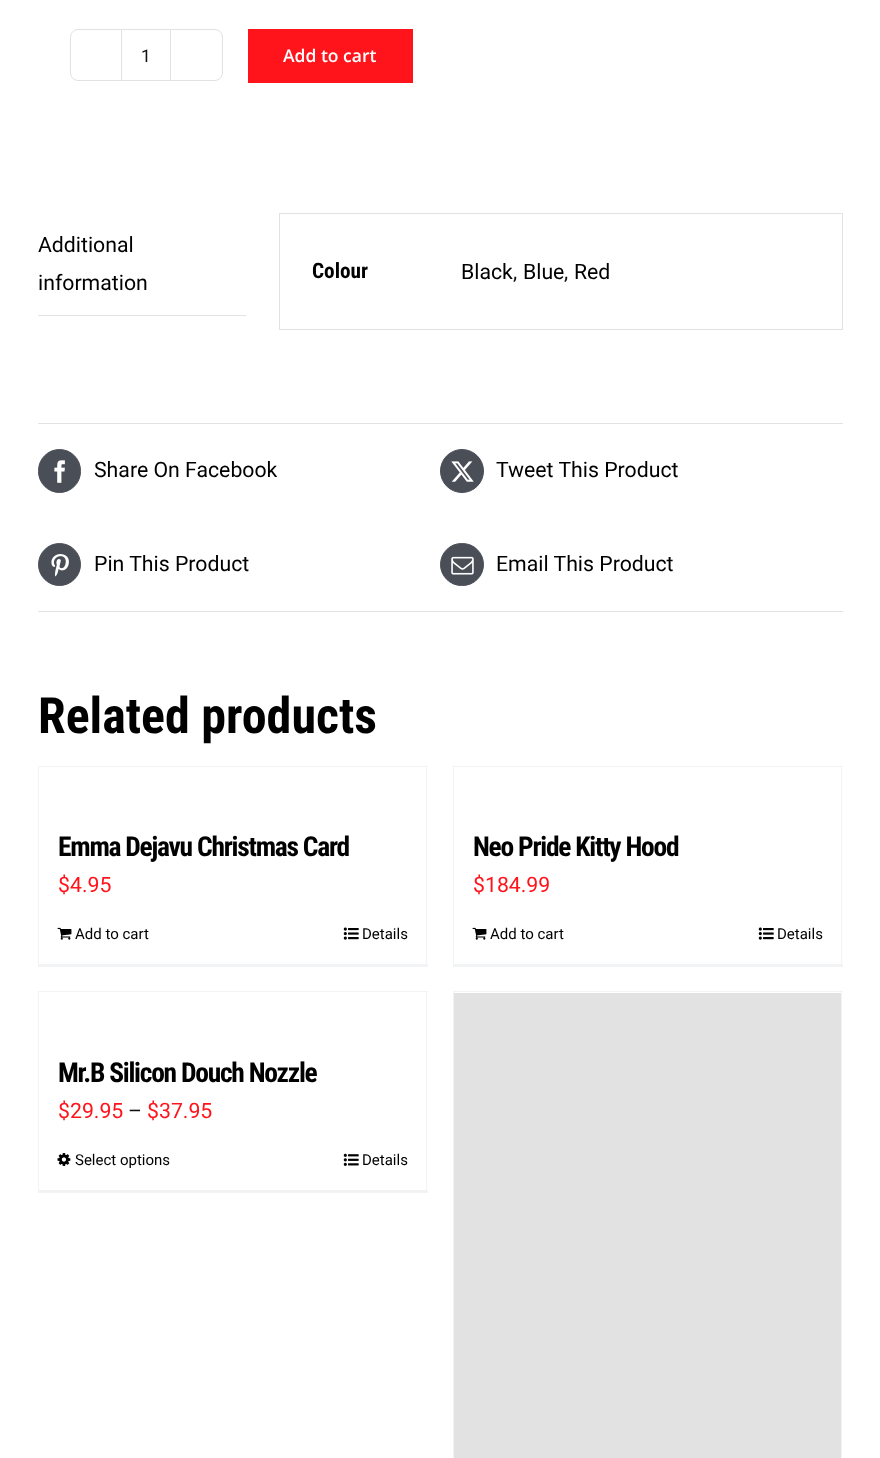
<?xml version="1.0" encoding="UTF-8"?>
<svg xmlns="http://www.w3.org/2000/svg" width="880" height="1458">
    <rect width="100%" height="100%" fill="#FFFFFF"/>
    <rect x="70.5" y="29.5" width="152" height="51" rx="7.5" fill="none" stroke="#E2E2E2"/>
    <rect x="170" y="30" width="1" height="50" fill="#E2E2E2"/>
    <rect x="121" y="30" width="1" height="50" fill="#E2E2E2"/>
    <text x="141" y="62" font-family="Roboto" font-size="17.5" fill="#111111">1</text>
    <rect x="248" y="29" width="165" height="54" fill="#FF141B"/>
    <text x="283" y="62" font-family="Open Sans" font-size="17.5" font-weight="600" fill="#FFFFFF">Add to cart</text>
    <rect x="38" y="315" width="208" height="1" fill="#E2E2E2"/>
    <text font-family="Roboto" font-size="21.25" fill="#000000">
        <tspan x="38" y="252">Additional</tspan>
        <tspan x="38" y="290">information</tspan>
    </text>
    <rect x="279.5" y="213.5" width="563" height="116" fill="none" stroke="#E2E2E2"/>
    <text x="312" y="278" font-family="Roboto Condensed" font-size="21.25" font-weight="700" fill="#000000">Colour</text>
    <text x="461" y="279" font-family="Roboto" font-size="21.25" fill="#000000">Black</text>
    <text x="513" y="279" font-family="Roboto" font-size="21.25" fill="#111111">,</text>
    <text x="523" y="279" font-family="Roboto" font-size="21.25" fill="#000000">Blue</text>
    <text x="564" y="279" font-family="Roboto" font-size="21.25" fill="#111111">,</text>
    <text x="574" y="279" font-family="Roboto" font-size="21.25" fill="#000000">Red</text>
    <rect x="38" y="423" width="805" height="1" fill="#E2E2E2"/>
    <rect x="38" y="611" width="805" height="1" fill="#E2E2E2"/>
    <rect x="38.5" y="449.5" width="42" height="43" rx="21" fill="#4A4E57" stroke="#4A4E57"/>
    <image x="54" y="460" width="11" height="23" href="img_01.png"/>
    <text x="94" y="477" font-family="Roboto" font-size="21.25" fill="#000000">Share On Facebook</text>
    <circle cx="462" cy="471" r="21.5" fill="#4A4E57" stroke="#4A4E57"/>
    <image x="451" y="461" width="23" height="21" href="img_02.png"/>
    <text x="496" y="477" font-family="Roboto" font-size="21.25" fill="#000000">Tweet This Product</text>
    <circle cx="59.5" cy="564.5" r="21" fill="#4A4E57" stroke="#4A4E57"/>
    <image x="51" y="554" width="18" height="23" href="img_03.png"/>
    <text x="94" y="571" font-family="Roboto" font-size="21.25" fill="#000000">Pin This Product</text>
    <rect x="440.5" y="543.5" width="43" height="42" rx="21" fill="#4A4E57" stroke="#4A4E57"/>
    <image x="451" y="556" width="23" height="19" href="img_04.png"/>
    <text x="496" y="571" font-family="Roboto" font-size="21.25" fill="#000000">Email This Product</text>
    <text x="38" y="733" font-family="Roboto Condensed" font-size="50" font-weight="700" fill="#000000">Related products</text>
    <rect x="38" y="766" width="390" height="1" fill="#F2F3F5"/>
    <rect x="426" y="766" width="1" height="200" fill="#F2F3F5"/>
    <rect x="38" y="964" width="390" height="3" fill="#F2F3F5"/>
    <rect x="38" y="766" width="1" height="200" fill="#F2F3F5"/>
    <text x="58" y="856" font-family="Roboto Condensed" font-size="27.5" font-weight="700" letter-spacing="-1.25" fill="#000000">Emma Dejavu Christmas Card</text>
    <text x="58" y="892" font-family="Roboto" font-size="21.25" fill="#FF141B">$4.95</text>
    <image x="57" y="927" width="15" height="13" href="img_05.png"/>
    <text x="75" y="939" font-family="Roboto" font-size="15" fill="#000000">Add to cart</text>
    <image x="343" y="927" width="16" height="13" href="img_06.png"/>
    <text x="362" y="939" font-family="Roboto" font-size="15" fill="#000000">Details</text>
    <rect x="453" y="766" width="390" height="1" fill="#F2F3F5"/>
    <rect x="841" y="766" width="1" height="200" fill="#F2F3F5"/>
    <rect x="453" y="964" width="390" height="3" fill="#F2F3F5"/>
    <rect x="453" y="766" width="1" height="200" fill="#F2F3F5"/>
    <text x="473" y="856" font-family="Roboto Condensed" font-size="27.5" font-weight="700" letter-spacing="-1.25" fill="#000000">Neo Pride Kitty Hood</text>
    <text x="473" y="892" font-family="Roboto" font-size="21.25" fill="#FF141B">$184.99</text>
    <image x="472" y="927" width="15" height="13" href="img_05.png"/>
    <text x="490" y="939" font-family="Roboto" font-size="15" fill="#000000">Add to cart</text>
    <image x="758" y="927" width="16" height="13" href="img_06.png"/>
    <text x="777" y="939" font-family="Roboto" font-size="15" fill="#000000">Details</text>
    <rect x="38" y="991" width="390" height="1" fill="#F2F3F5"/>
    <rect x="426" y="991" width="1" height="202" fill="#F2F3F5"/>
    <rect x="38" y="1190" width="390" height="3" fill="#F2F3F5"/>
    <rect x="38" y="991" width="1" height="202" fill="#F2F3F5"/>
    <text x="58" y="1082" font-family="Roboto Condensed" font-size="27.5" font-weight="700" letter-spacing="-1.25" fill="#000000">Mr.B Silicon Douch Nozzle</text>
    <text x="58" y="1118" font-family="Roboto" font-size="21.25" fill="#FF141B">$29.95</text>
    <text x="128" y="1118" font-family="Roboto" font-size="21.25" fill="#111111">–</text>
    <text x="147" y="1118" font-family="Roboto" font-size="21.25" fill="#FF141B">$37.95</text>
    <image x="57" y="1153" width="14" height="13" href="img_07.png"/>
    <text x="75" y="1165" font-family="Roboto" font-size="15" fill="#000000">Select options</text>
    <image x="343" y="1153" width="16" height="13" href="img_08.png"/>
    <text x="362" y="1165" font-family="Roboto" font-size="15" fill="#000000">Details</text>
    <rect x="453" y="991" width="390" height="1" fill="#F2F3F5"/>
    <rect x="841" y="991" width="1" height="467" fill="#F2F3F5"/>
    <rect x="453" y="991" width="1" height="467" fill="#F2F3F5"/>
    <rect x="454" y="993" width="387" height="465" fill="#E2E2E2"/>
</svg>
